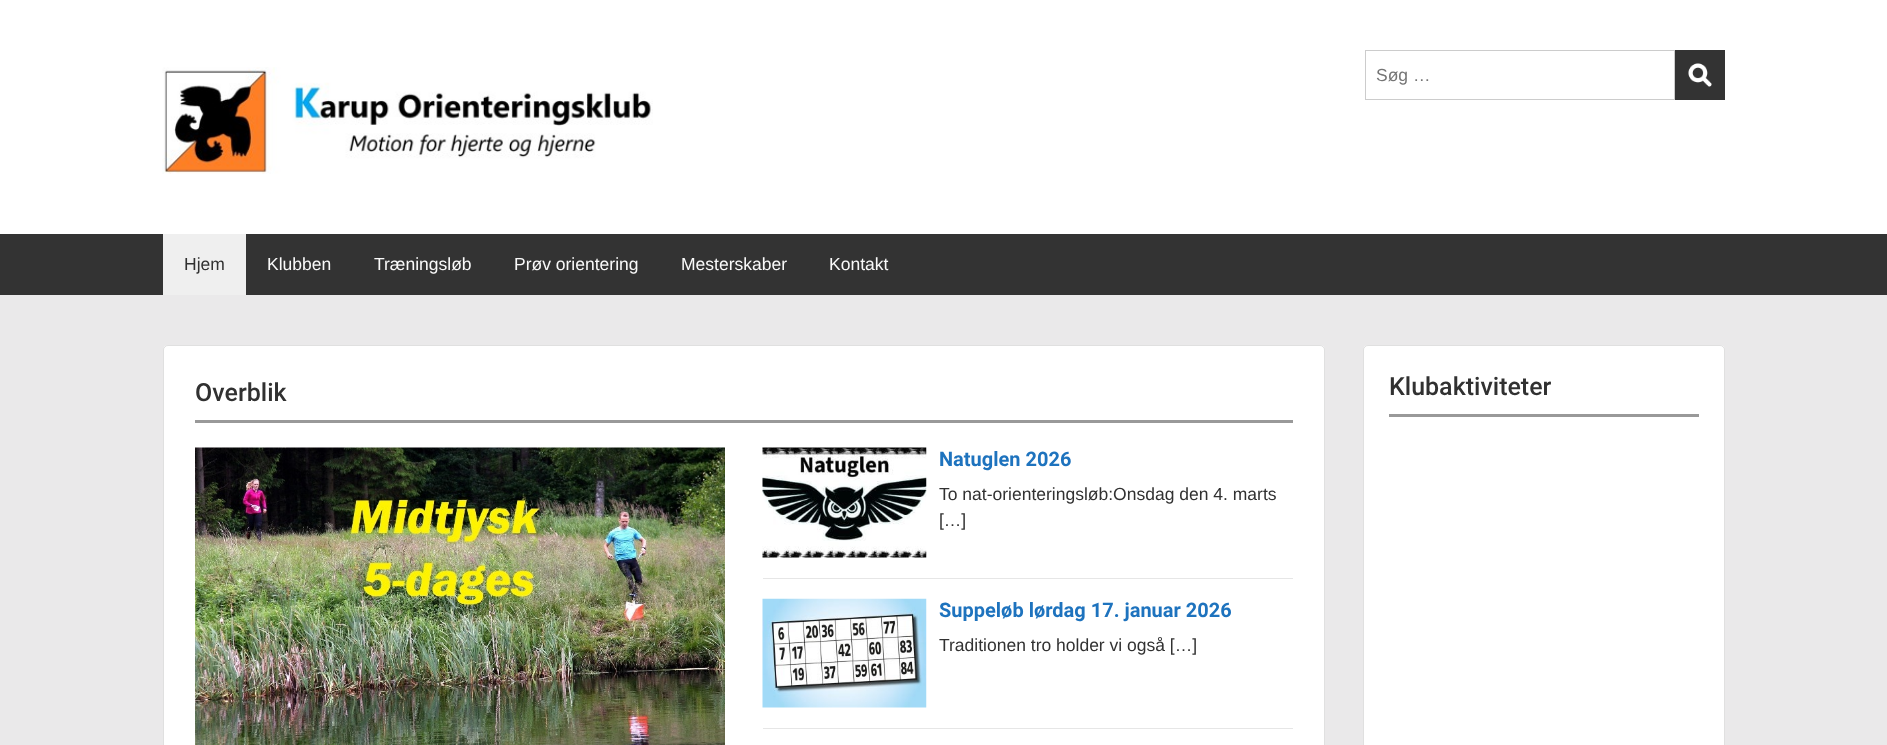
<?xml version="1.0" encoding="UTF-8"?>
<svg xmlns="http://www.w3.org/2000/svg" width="1887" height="745">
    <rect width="100%" height="100%" fill="#EAE9EA"/>
    <rect x="0" y="0" width="1887" height="234" fill="#FFFFFF"/>
    <image x="162" y="67" width="491" height="107" href="img_01.png"/>
    <rect x="1365.5" y="50.5" width="309" height="49" fill="none" stroke="#CCCCCC"/>
    <text x="1376" y="81" font-family="Liberation Sans" font-size="17.5" fill="#757575">Søg …</text>
    <rect x="1675" y="50" width="50" height="50" fill="#333333"/>
    <image x="1688" y="63" width="24" height="24" href="img_02.png"/>
    <rect x="0" y="234" width="1887" height="61" fill="#333333"/>
    <rect x="163" y="234" width="83" height="61" fill="#EFEFEF"/>
    <text x="184" y="270" font-family="Liberation Sans" font-size="17.5" fill="#313131">Hjem</text>
    <text x="267" y="270" font-family="Liberation Sans" font-size="17.5" fill="#FAFAFA">Klubben</text>
    <text x="374" y="270" font-family="Liberation Sans" font-size="17.5" fill="#FAFAFA">Træningsløb</text>
    <text x="514" y="270" font-family="Liberation Sans" font-size="17.5" fill="#FAFAFA">Prøv orientering</text>
    <text x="681" y="270" font-family="Liberation Sans" font-size="17.5" fill="#FAFAFA">Mesterskaber</text>
    <text x="829" y="270" font-family="Liberation Sans" font-size="17.5" fill="#FAFAFA">Kontakt</text>
    <rect x="163" y="345" width="1162" height="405" rx="5" fill="#FFFFFF"/>
    <rect x="163.5" y="345.5" width="1161" height="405" rx="4.5" fill="none" stroke="#000000" stroke-opacity="0.12"/>
    <rect x="195" y="420" width="1098" height="3" fill="#999999"/>
    <text x="195" y="401" font-family="Roboto" font-size="25" font-weight="500" fill="#313131">Overblik</text>
    <image x="195" y="447" width="530" height="298" href="img_03.png"/>
    <rect x="763" y="578" width="530" height="1" fill="#E6E6E6"/>
    <image x="762" y="447" width="165" height="111" href="img_04.png"/>
    <text x="939" y="466" font-family="Roboto" font-size="20" font-weight="700" fill="#1E73BE">Natuglen 2026</text>
    <text font-family="Liberation Sans" font-size="17.5" fill="#313131">
        <tspan x="939" y="500">To nat-orienteringsløb:Onsdag den 4. marts</tspan>
        <tspan x="939" y="526">[…]</tspan>
    </text>
    <rect x="763" y="728" width="530" height="1" fill="#E6E6E6"/>
    <image x="762" y="598" width="165" height="110" href="img_05.png"/>
    <text x="939" y="617" font-family="Roboto" font-size="20" font-weight="700" fill="#1E73BE">Suppeløb lørdag 17. januar 2026</text>
    <text x="939" y="651" font-family="Liberation Sans" font-size="17.5" fill="#313131">Traditionen tro holder vi også […]</text>
    <rect x="1363" y="345" width="362" height="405" rx="5" fill="#FFFFFF"/>
    <rect x="1363.5" y="345.5" width="361" height="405" rx="4.5" fill="none" stroke="#000000" stroke-opacity="0.12"/>
    <rect x="1389" y="414" width="310" height="3" fill="#999999"/>
    <text x="1389" y="395" font-family="Roboto" font-size="25" font-weight="500" fill="#313131">Klubaktiviteter</text>
</svg>
